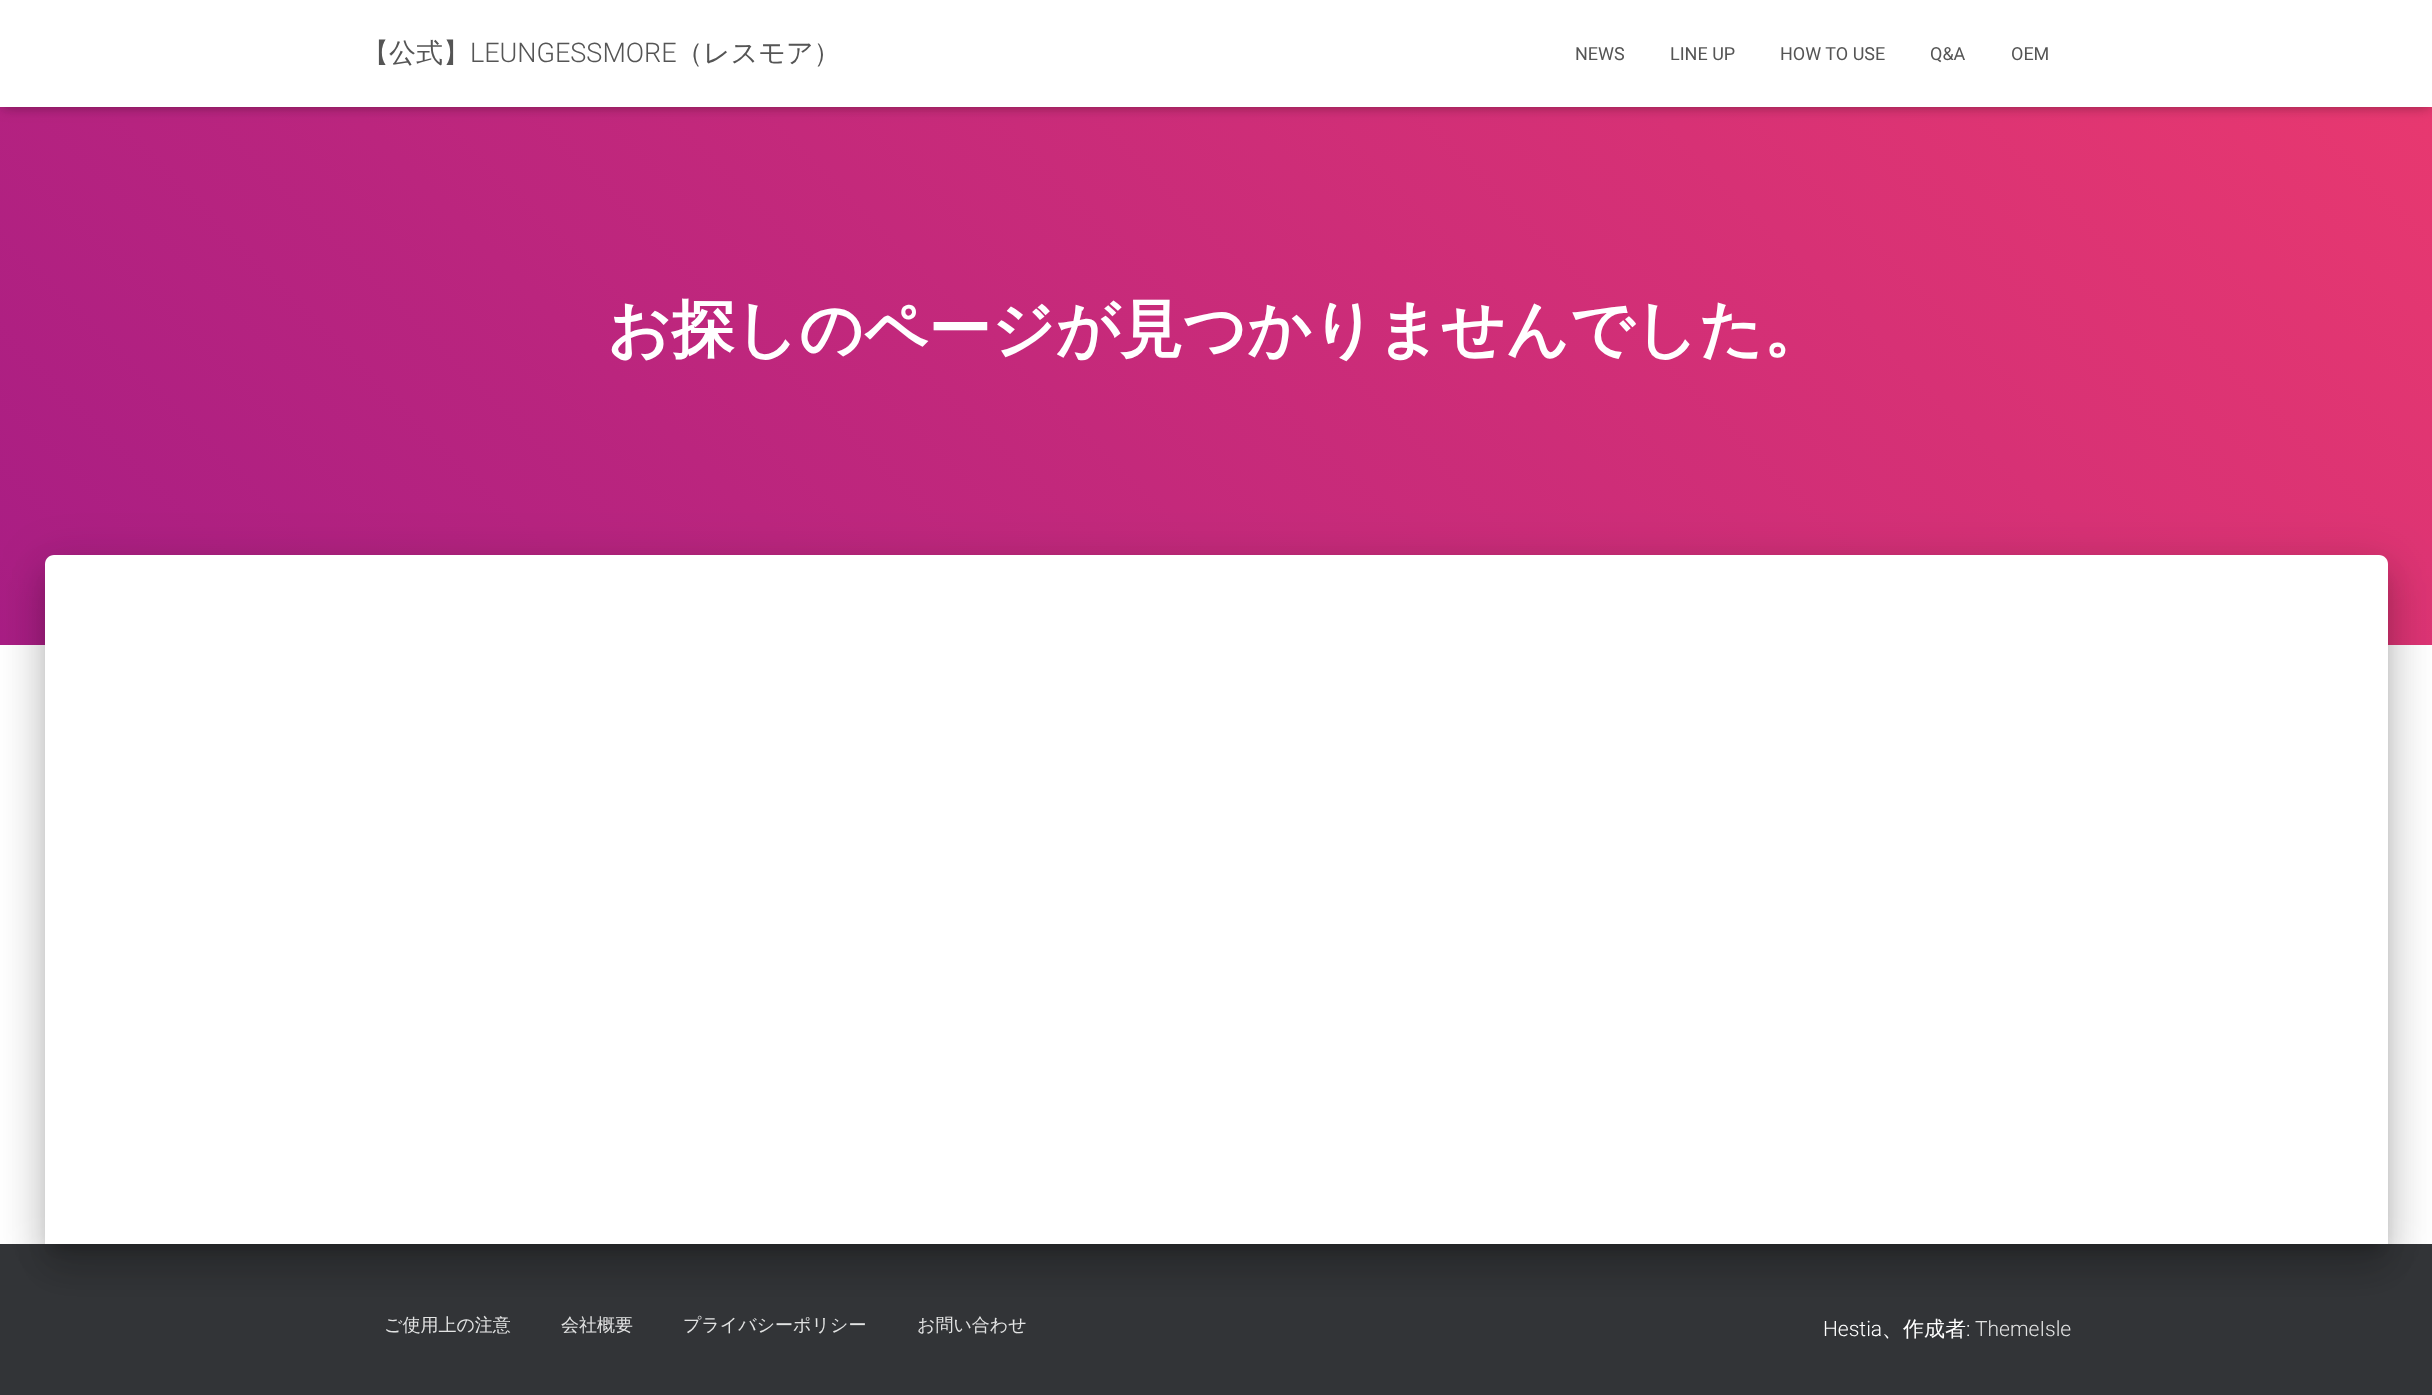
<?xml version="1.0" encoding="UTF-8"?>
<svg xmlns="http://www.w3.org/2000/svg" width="2432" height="1395">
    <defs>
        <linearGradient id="g1" gradientUnits="userSpaceOnUse" x1="447" y1="1092" x2="1986" y2="-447"><stop offset="0" stop-color="#A81D84"/><stop offset="1" stop-color="#EA396F"/></linearGradient>
        <filter id="blur1" x="-50%" y="-200%" width="200%" height="500%"><feGaussianBlur stdDeviation="4"/></filter>
        <filter id="blur2" x="-50%" y="-200%" width="200%" height="500%"><feGaussianBlur stdDeviation="7.5"/></filter>
        <filter id="blur3" x="-50%" y="-200%" width="200%" height="500%"><feGaussianBlur stdDeviation="22.5"/></filter>
        <filter id="blur4" x="-50%" y="-200%" width="200%" height="500%"><feGaussianBlur stdDeviation="18"/></filter>
    </defs>
    <rect width="100%" height="100%" fill="#FFFFFF"/>
    <rect x="0" y="107" width="2432" height="538" fill="url(#g1)"/>
    <rect x="3" y="9" width="2427" height="101" fill="#000000" fill-opacity="0.1" filter="url(#blur1)"/>
    <rect x="0" y="2" width="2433" height="106" fill="#000000" fill-opacity="0.12" filter="url(#blur2)"/>
    <rect x="9" y="11" width="2415" height="88" fill="#000000" fill-opacity="0.42" filter="url(#blur2)"/>
    <rect x="0" y="0" width="2432" height="107" fill="#FFFFFF"/>
    <text x="362" y="62" font-family="WenQuanYi Zen Hei" font-size="27" font-weight="500" fill="#555555">【公式】</text>
    <text x="470" y="62" font-family="Roboto" font-size="27" font-weight="300" fill="#555555">LEUNGESSMORE</text>
    <text x="676" y="62" font-family="WenQuanYi Zen Hei" font-size="27" font-weight="500" fill="#555555">（レスモア）</text>
    <text x="1575" y="60" font-family="Roboto" font-size="18" fill="#555555">NEWS</text>
    <text x="1670" y="60" font-family="Roboto" font-size="18" fill="#555555">LINE UP</text>
    <text x="1780" y="60" font-family="Roboto" font-size="18" fill="#555555">HOW TO USE</text>
    <text x="1930" y="60" font-family="Roboto" font-size="18" fill="#555555">Q&amp;A</text>
    <text x="2011" y="60" font-family="Roboto" font-size="18" fill="#555555">OEM</text>
    <text x="607" y="351" font-family="WenQuanYi Zen Hei" font-size="63" font-weight="700" fill="#FFFFFF">お探しのページが見つかりませんでした。</text>
    <rect x="0" y="1244" width="2432" height="151" fill="#323437"/>
    <rect x="53" y="575" width="2328" height="673" rx="1.5" fill="#000000" fill-opacity="0.2" filter="url(#blur2)"/>
    <rect x="38" y="557" width="2358" height="703" rx="17" fill="#000000" fill-opacity="0.12" filter="url(#blur3)"/>
    <rect x="42" y="576" width="2349" height="695" rx="12" fill="#000000" fill-opacity="0.14" filter="url(#blur4)"/>
    <path d="M 54 555 H 2379 C 2384 555 2388 559 2388 564 V 1244 H 45 V 564 C 45 559 49 555 54 555 Z" fill="#FFFFFF"/>
    <text x="384" y="1331" font-family="WenQuanYi Zen Hei" font-size="18" font-weight="500" fill="#E2E3E3">ご使用上の注意</text>
    <text x="561" y="1331" font-family="WenQuanYi Zen Hei" font-size="18" font-weight="500" fill="#E2E3E3">会社概要</text>
    <text x="683" y="1331" font-family="WenQuanYi Zen Hei" font-size="18" font-weight="500" fill="#E2E3E3">プライバシーポリシー</text>
    <text x="917" y="1331" font-family="WenQuanYi Zen Hei" font-size="18" font-weight="500" fill="#E2E3E3">お問い合わせ</text>
    <text x="1823" y="1336" font-family="Roboto" font-size="21" font-weight="300" fill="#FFFFFF">Hestia</text>
    <text x="1882" y="1336" font-family="WenQuanYi Zen Hei" font-size="21" font-weight="500" fill="#FFFFFF">、作成者</text>
    <text x="1966" y="1336" font-family="Roboto" font-size="21" font-weight="300" fill="#FFFFFF">:</text>
    <text x="1975" y="1336" font-family="Roboto" font-size="21" font-weight="300" fill="#E2E3E3">ThemeIsle</text>
</svg>
